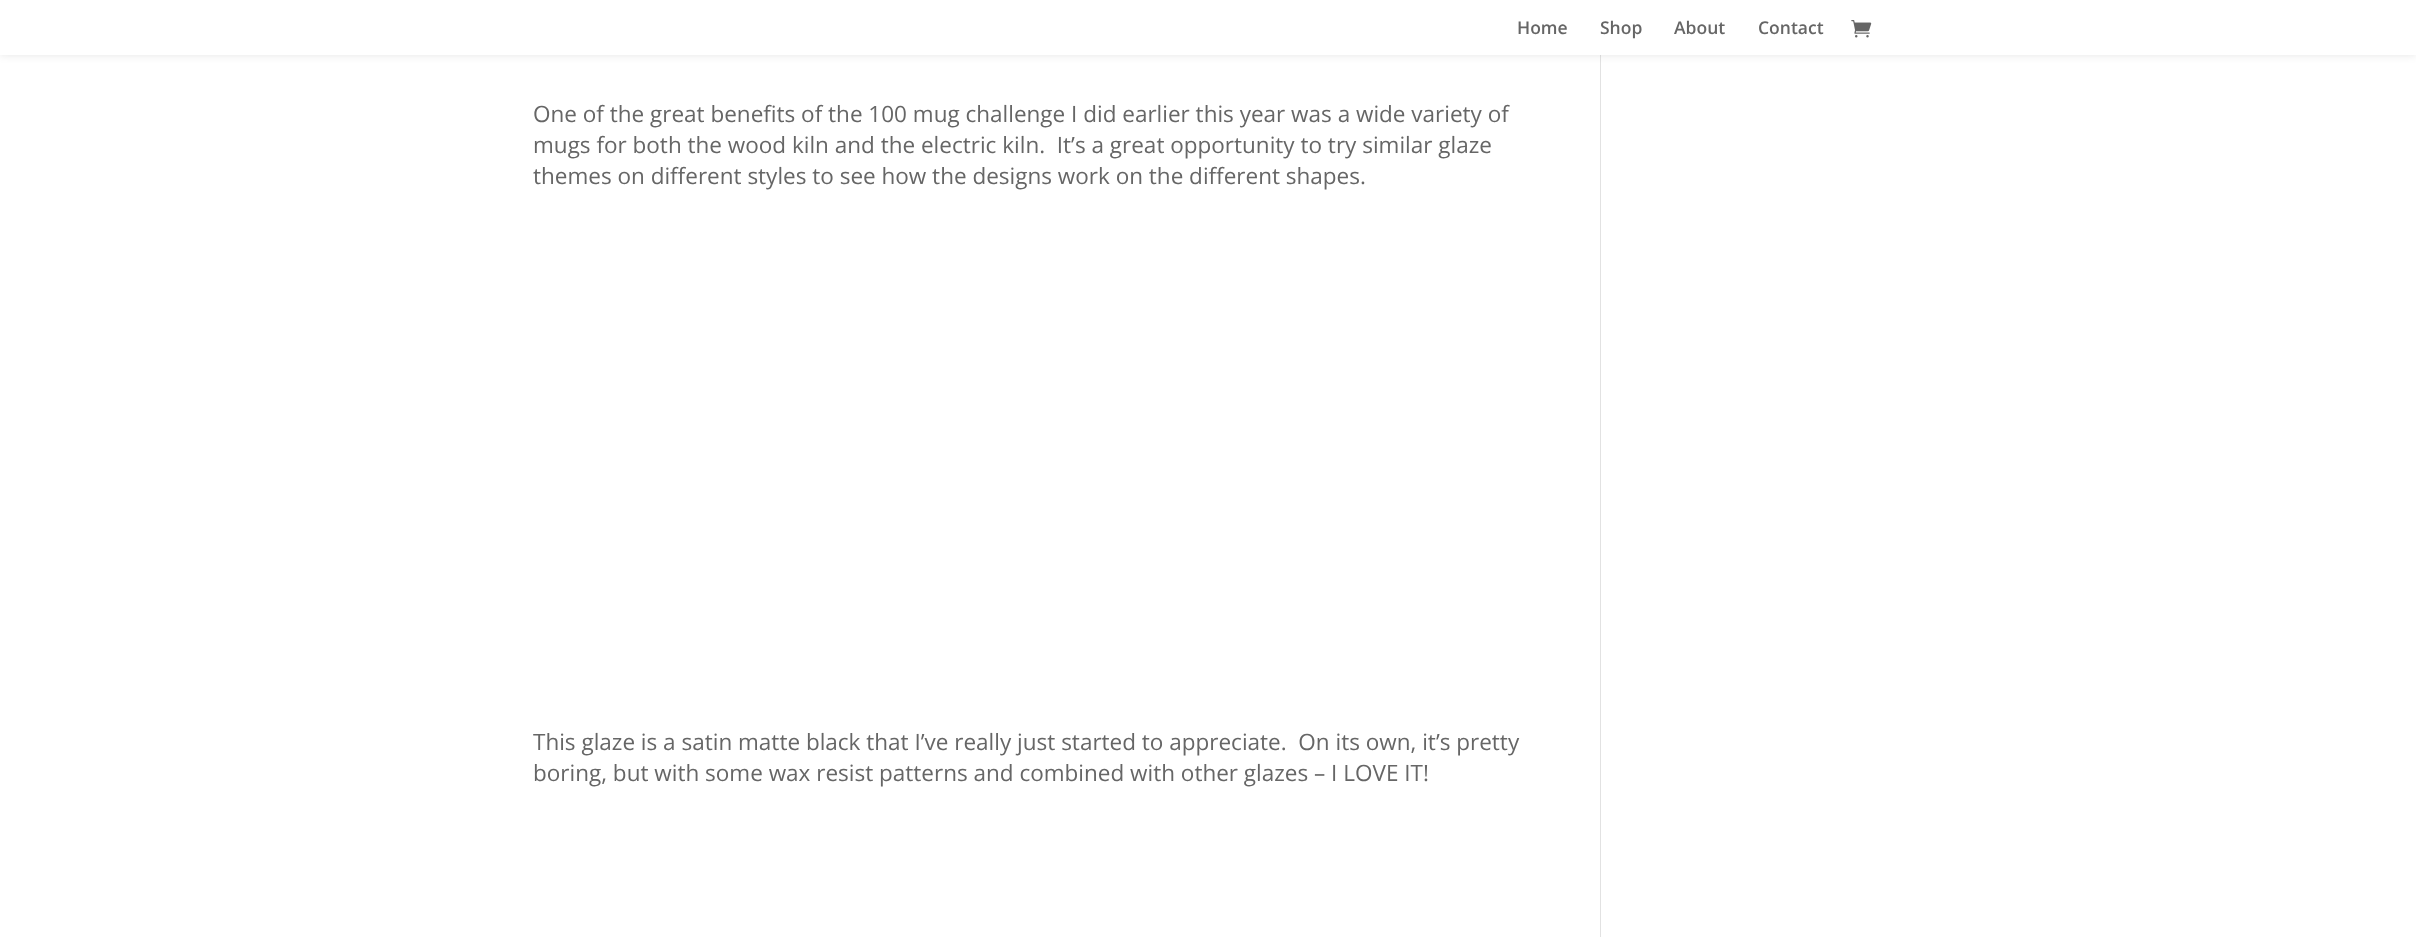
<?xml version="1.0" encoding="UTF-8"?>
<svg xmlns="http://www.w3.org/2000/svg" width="2416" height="937">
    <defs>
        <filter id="blur1" x="-50%" y="-200%" width="200%" height="500%"><feGaussianBlur stdDeviation="4.5"/></filter>
    </defs>
    <rect width="100%" height="100%" fill="#FFFFFF"/>
    <rect x="1600" y="55" width="1" height="882" fill="#E2E2E2"/>
    <rect x="0" y="0" width="2416" height="55" fill="#000000" fill-opacity="0.1" filter="url(#blur1)"/>
    <rect x="0" y="0" width="2416" height="55" fill="#FFFFFF"/>
    <text x="1517" y="34" font-family="Open Sans" font-size="17.5" font-weight="600" fill="#666666">Home</text>
    <text x="1600" y="34" font-family="Open Sans" font-size="17.5" font-weight="600" fill="#666666">Shop</text>
    <text x="1674" y="34" font-family="Open Sans" font-size="17.5" font-weight="600" fill="#666666">About</text>
    <text x="1758" y="34" font-family="Open Sans" font-size="17.5" font-weight="600" fill="#666666">Contact</text>
    <image x="1851" y="20" width="21" height="18" href="img_01.png"/>
    <text font-family="Open Sans" font-size="22.5" fill="#666666" xml:space="preserve"><tspan x="533" y="122">One of the great benefits of the 100 mug challenge I did earlier this year was a wide variety of</tspan><tspan x="533" y="153">mugs for both the wood kiln and the electric kiln.  It’s a great opportunity to try similar glaze</tspan><tspan x="533" y="184">themes on different styles to see how the designs work on the different shapes.</tspan></text>
    <text font-family="Open Sans" font-size="22.5" fill="#666666" xml:space="preserve"><tspan x="533" y="750">This glaze is a satin matte black that I’ve really just started to appreciate.  On its own, it’s pretty</tspan><tspan x="533" y="781">boring, but with some wax resist patterns and combined with other glazes – I LOVE IT!</tspan></text>
</svg>
